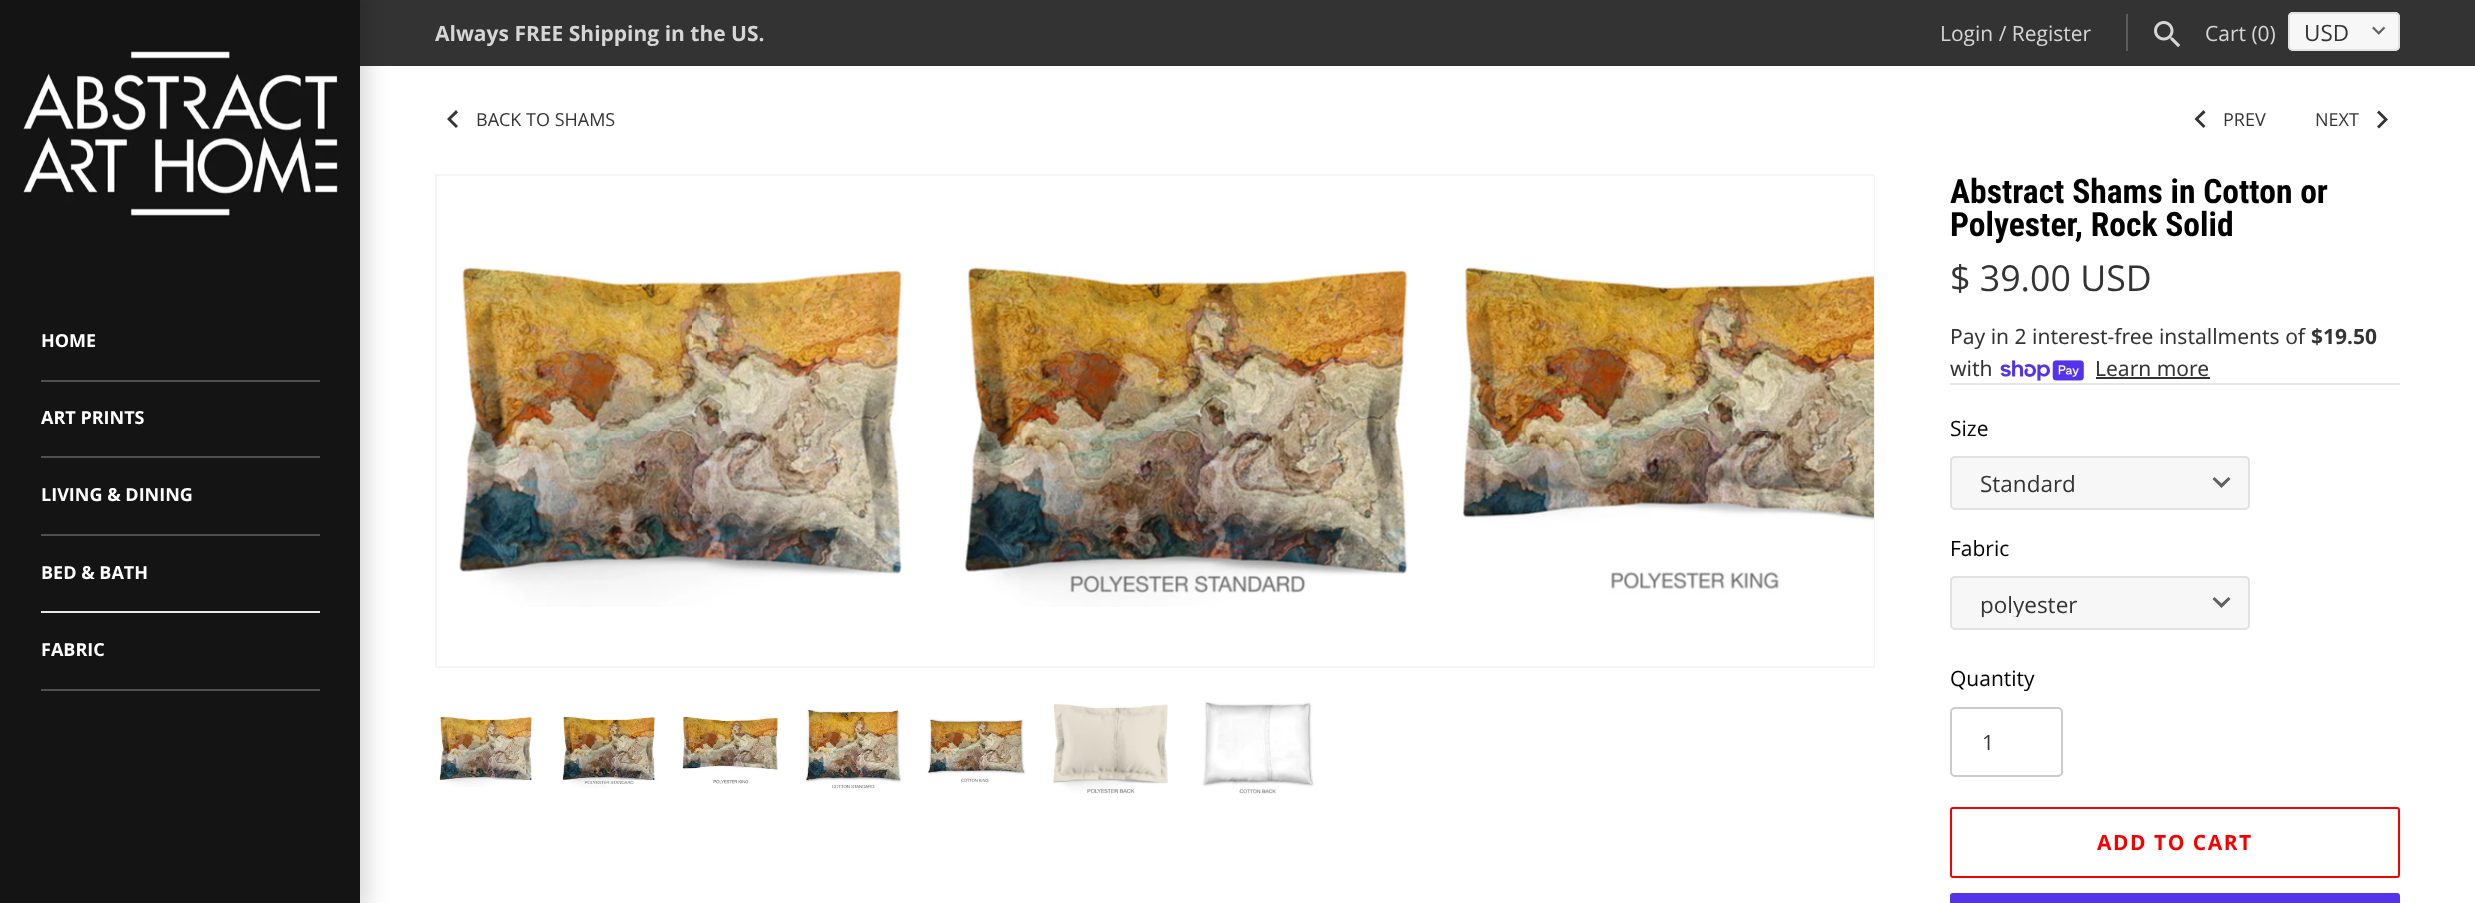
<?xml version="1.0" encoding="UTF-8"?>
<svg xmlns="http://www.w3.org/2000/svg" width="2475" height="903">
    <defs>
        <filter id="blur1" x="-50%" y="-200%" width="200%" height="500%"><feGaussianBlur stdDeviation="11"/></filter>
        <clipPath id="clip1"><rect x="1980" y="590" width="209" height="27"/></clipPath>
    </defs>
    <rect width="100%" height="100%" fill="#FFFFFF"/>
    <rect x="360" y="0" width="2115" height="66" fill="#333333"/>
    <text x="435" y="41" font-family="Open Sans" font-size="21" font-weight="700" fill="#D6D6D6">Always FREE Shipping in the US.</text>
    <text x="1940" y="41" font-family="Open Sans" font-size="21" fill="#D6D6D6">Login / Register</text>
    <rect x="2126" y="14" width="2" height="37" fill="#5C5C5C"/>
    <image x="2154" y="21" width="27" height="27" href="img_01.png"/>
    <text x="2205" y="41" font-family="Open Sans" font-size="21" fill="#D6D6D6">Cart (0)</text>
    <rect x="2288" y="12" width="112" height="39" rx="5" fill="#F7F7F7"/>
    <image x="2372" y="26" width="14" height="9" href="img_02.png"/>
    <rect x="2289" y="13" width="110" height="37" rx="4" fill="none" stroke="#E2E2E2" stroke-width="2"/>
    <text x="2304" y="41" font-family="Open Sans" font-size="22.5" fill="#343434">USD</text>
    <rect x="-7" y="-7" width="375" height="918" fill="#000000" fill-opacity="0.15" filter="url(#blur1)"/>
    <rect x="0" y="0" width="360" height="903" fill="#141414"/>
    <image x="22" y="50" width="316" height="167" href="img_03.png"/>
    <rect x="41" y="380" width="279" height="2" fill="#4F4F4F"/>
    <text x="41" y="347" font-family="Open Sans" font-size="18" font-weight="700" fill="#FFFFFF">HOME</text>
    <rect x="41" y="456" width="279" height="2" fill="#4F4F4F"/>
    <text x="41" y="424" font-family="Open Sans" font-size="18" font-weight="700" fill="#FFFFFF">ART PRINTS</text>
    <rect x="41" y="534" width="279" height="2" fill="#4F4F4F"/>
    <text x="41" y="501" font-family="Open Sans" font-size="18" font-weight="700" fill="#FFFFFF">LIVING &amp; DINING</text>
    <rect x="41" y="611" width="279" height="2" fill="#E8E8E8"/>
    <text x="41" y="579" font-family="Open Sans" font-size="18" font-weight="700" fill="#FFFFFF">BED &amp; BATH</text>
    <rect x="41" y="689" width="279" height="2" fill="#4F4F4F"/>
    <text x="41" y="656" font-family="Open Sans" font-size="18" font-weight="700" fill="#FFFFFF">FABRIC</text>
    <text x="476" y="126" font-family="Open Sans" font-size="18" fill="#343434">BACK TO SHAMS</text>
    <path d="M 458 126 L 451 119 L 458 112.5 L 456 110 L 447 119 L 456 128 Z" fill="#343434"/>
    <text x="2223" y="126" font-family="Open Sans" font-size="18" fill="#343434">PREV</text>
    <path d="M 2205.5 126 L 2198.5 119 L 2205.5 112.5 L 2203.5 110 L 2194.5 119 L 2203.5 128 Z" fill="#343434"/>
    <text x="2315" y="126" font-family="Open Sans" font-size="18" fill="#343434">NEXT</text>
    <path d="M 2377 126.5 L 2384 119.5 L 2377 112.5 L 2379 110.5 L 2388 119.5 L 2379 128.5 Z" fill="#343434"/>
    <rect x="436" y="175" width="1438" height="492" fill="none" stroke="#F5F5F5" stroke-width="2"/>
    <image x="459" y="266" width="445" height="341" href="img_04.png"/>
    <image x="964" y="266" width="445" height="341" href="img_05.png"/>
    <image x="1462" y="176" width="412" height="490" href="img_06.png"/>
    <image x="439" y="716" width="95" height="71" href="img_07.png"/>
    <image x="562" y="716" width="96" height="72" href="img_08.png"/>
    <image x="682" y="716" width="97" height="68" href="img_09.png"/>
    <image x="805" y="709" width="97" height="80" href="img_10.png"/>
    <image x="926" y="718" width="100" height="65" href="img_11.png"/>
    <image x="1052" y="703" width="117" height="91" href="img_12.png"/>
    <image x="1202" y="701" width="112" height="93" href="img_13.png"/>
    <text font-family="Roboto Condensed" font-size="33.6" font-weight="700" fill="#000000">
        <tspan x="1950" y="203">Abstract Shams in Cotton or</tspan>
        <tspan x="1950" y="236">Polyester, Rock Solid</tspan>
    </text>
    <text x="1950" y="291" font-family="Open Sans" font-size="35.75" fill="#343434">$ 39.00 USD</text>
    <text x="1950" y="344" font-family="Noto Sans" font-size="21" fill="#343434">Pay in 2 interest-free installments of</text>
    <text x="2311" y="344" font-family="Noto Sans" font-size="21" font-weight="700" fill="#343434">$19.50</text>
    <text x="1950" y="376" font-family="Noto Sans" font-size="21" fill="#343434">with</text>
    <image x="2000" y="360" width="84" height="21" href="img_14.png"/>
    <text x="2095" y="376" font-family="Noto Sans" font-size="21" fill="#343434">Learn more</text>
    <rect x="2096" y="377" width="114" height="2" fill="#343434"/>
    <rect x="1950" y="383" width="450" height="2" fill="#E7E7E7"/>
    <text x="1950" y="436" font-family="Open Sans" font-size="21" fill="#000000">Size</text>
    <rect x="1950" y="456" width="300" height="54" rx="5" fill="#F7F7F7"/>
    <path d="M 2214.5 477 L 2221.5 483.5 L 2228.5 477 L 2230.5 479 L 2221.5 488 L 2212.5 479 Z" fill="#616161"/>
    <rect x="1951" y="457" width="298" height="52" rx="4" fill="none" stroke="#E2E2E2" stroke-width="2"/>
    <text x="1980" y="492" font-family="Open Sans" font-size="22.5" fill="#343434">Standard</text>
    <text x="1950" y="556" font-family="Open Sans" font-size="21" fill="#000000">Fabric</text>
    <rect x="1950" y="576" width="300" height="54" rx="5" fill="#F7F7F7"/>
    <path d="M 2214.5 597 L 2221.5 603.5 L 2228.5 597 L 2230.5 599 L 2221.5 608 L 2212.5 599 Z" fill="#616161"/>
    <rect x="1951" y="577" width="298" height="52" rx="4" fill="none" stroke="#E2E2E2" stroke-width="2"/>
    <g clip-path="url(#clip1)">
        <text x="1980" y="613" font-family="Open Sans" font-size="22.5" fill="#343434">polyester</text>
    </g>
    <text x="1950" y="686" font-family="Open Sans" font-size="21" fill="#000000">Quantity</text>
    <rect x="1951" y="708" width="111" height="68" rx="4" fill="none" stroke="#CCCCCC" stroke-width="2"/>
    <text x="1982" y="750" font-family="Open Sans" font-size="21" fill="#343434">1</text>
    <rect x="1951" y="808" width="448" height="69" rx="2" fill="none" stroke="#F90000" stroke-width="2"/>
    <text x="2097" y="850" font-family="Open Sans" font-size="21" font-weight="700" letter-spacing="1.5" fill="#F90000">ADD TO CART</text>
    <rect x="1950" y="893" width="450" height="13" rx="3" fill="#5433EB"/>
</svg>
